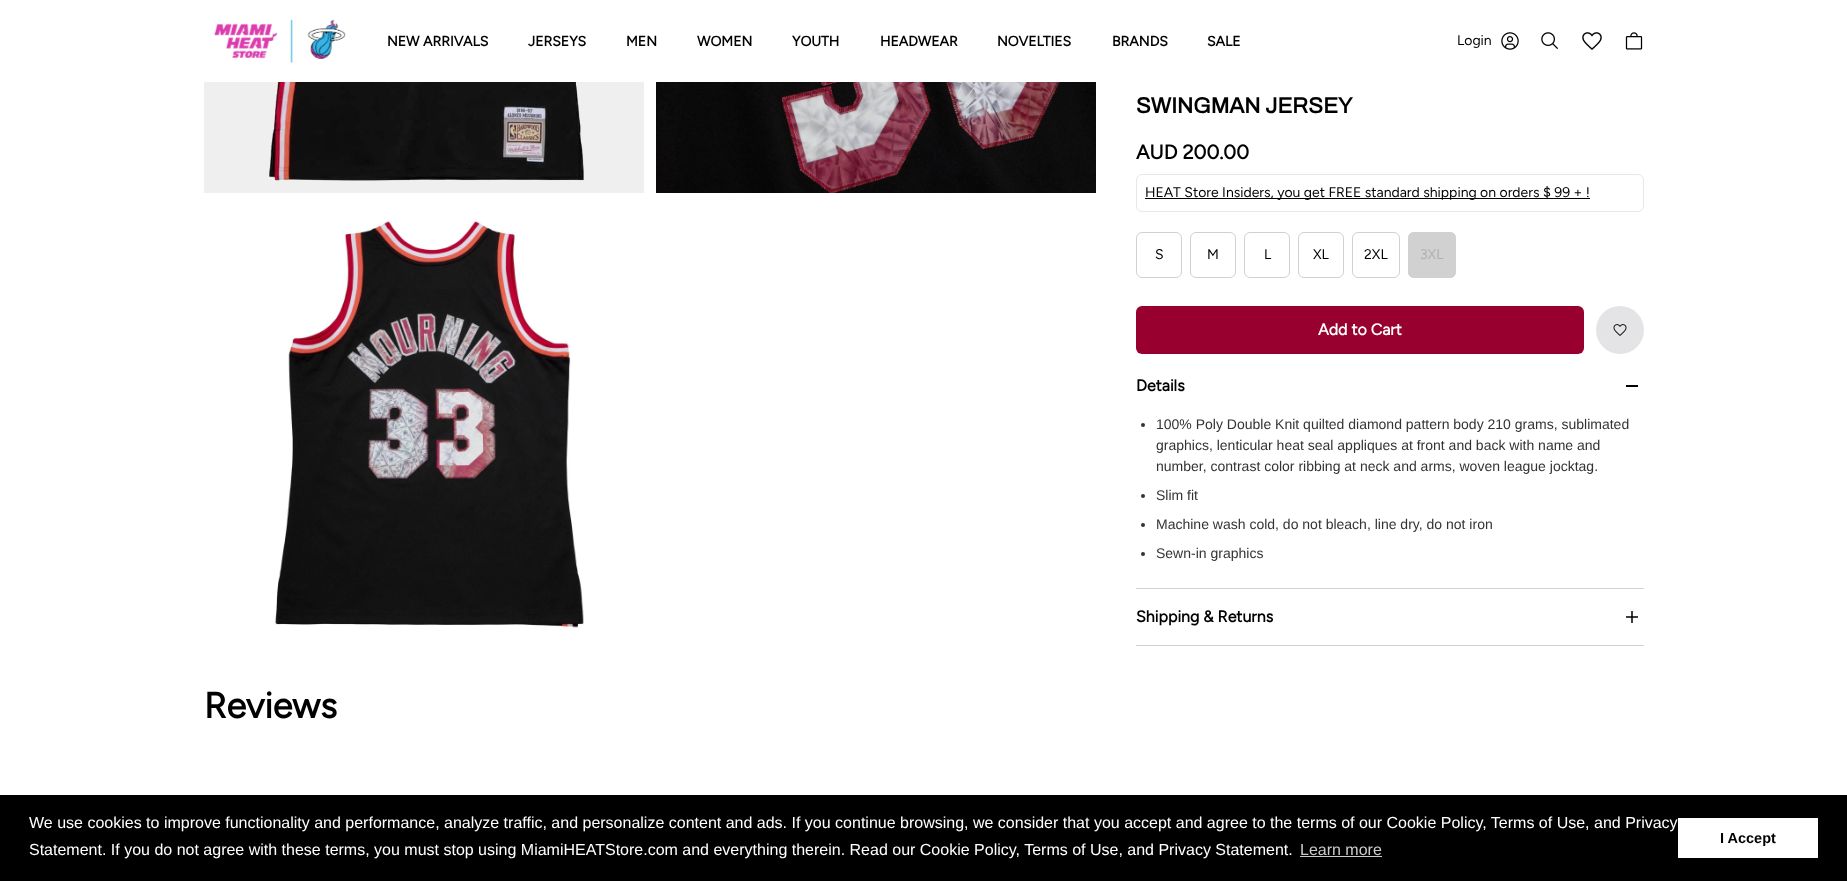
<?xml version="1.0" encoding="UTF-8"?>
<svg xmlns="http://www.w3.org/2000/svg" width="1847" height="881">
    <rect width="100%" height="100%" fill="#FFFFFF"/>
    <image x="214" y="19" width="132" height="44" href="img_01.png"/>
    <text x="387" y="46" font-family="Figtree" font-size="14" font-weight="700" fill="#000000">NEW ARRIVALS</text>
    <text x="528" y="46" font-family="Figtree" font-size="14" font-weight="700" fill="#000000">JERSEYS</text>
    <text x="626" y="46" font-family="Figtree" font-size="14" font-weight="700" fill="#000000">MEN</text>
    <text x="697" y="46" font-family="Figtree" font-size="14" font-weight="700" fill="#000000">WOMEN</text>
    <text x="792" y="46" font-family="Figtree" font-size="14" font-weight="700" fill="#000000">YOUTH</text>
    <text x="880" y="46" font-family="Figtree" font-size="14" font-weight="700" fill="#000000">HEADWEAR</text>
    <text x="997" y="46" font-family="Figtree" font-size="14" font-weight="700" fill="#000000">NOVELTIES</text>
    <text x="1112" y="46" font-family="Figtree" font-size="14" font-weight="700" fill="#000000">BRANDS</text>
    <text x="1207" y="46" font-family="Figtree" font-size="14" font-weight="700" fill="#000000">SALE</text>
    <text x="1457" y="45" font-family="Figtree" font-size="14" fill="#000000">Login</text>
    <image x="1501" y="32" width="18" height="18" href="img_02.png"/>
    <image x="1541" y="32" width="17" height="17" href="img_03.png"/>
    <image x="1582" y="32" width="20" height="18" href="img_04.png"/>
    <image x="1625" y="32" width="18" height="18" href="img_05.png"/>
    <rect x="204" y="82" width="440" height="111" fill="#F0EFEF"/>
    <image x="269" y="82" width="315" height="99" href="img_06.png"/>
    <image x="656" y="82" width="440" height="111" href="img_07.png"/>
    <image x="204" y="205" width="440" height="441" href="img_08.png"/>
    <text x="1136" y="113" font-family="Archivo" font-size="22" font-weight="700" fill="#000000">SWINGMAN JERSEY</text>
    <text x="1136" y="159" font-family="Figtree" font-size="20" font-weight="700" fill="#000000">AUD 200.00</text>
    <rect x="1136.5" y="174.5" width="507" height="37" rx="5.5" fill="none" stroke="#E5E7EB"/>
    <rect x="1145" y="198" width="445" height="1" fill="#000000"/>
    <text x="1145" y="197" font-family="Figtree" font-size="14" fill="#000000">HEAT Store Insiders, you get FREE standard shipping on orders $ 99 + !</text>
    <rect x="1136.5" y="232.5" width="45" height="45" rx="5.5" fill="none" stroke="#D1D1D1"/>
    <text x="1155" y="259" font-family="Figtree" font-size="14" fill="#000000">S</text>
    <rect x="1190.5" y="232.5" width="45" height="45" rx="5.5" fill="none" stroke="#D1D1D1"/>
    <text x="1207" y="259" font-family="Figtree" font-size="14" fill="#000000">M</text>
    <rect x="1244.5" y="232.5" width="45" height="45" rx="5.5" fill="none" stroke="#D1D1D1"/>
    <text x="1264" y="259" font-family="Figtree" font-size="14" fill="#000000">L</text>
    <rect x="1298.5" y="232.5" width="45" height="45" rx="5.5" fill="none" stroke="#D1D1D1"/>
    <text x="1313" y="259" font-family="Figtree" font-size="14" fill="#000000">XL</text>
    <rect x="1352.5" y="232.5" width="47" height="45" rx="5.5" fill="none" stroke="#D1D1D1"/>
    <text x="1364" y="259" font-family="Figtree" font-size="14" fill="#000000">2XL</text>
    <rect x="1408" y="232" width="48" height="46" rx="6" fill="#D1D1D1"/>
    <rect x="1408.5" y="232.5" width="47" height="45" rx="5.5" fill="none" stroke="#D1D1D1"/>
    <text x="1420" y="259" font-family="Figtree" font-size="14" fill="#B0B0B0">3XL</text>
    <rect x="1136" y="306" width="448" height="48" rx="6" fill="#98002F"/>
    <text x="1318" y="335" font-family="Figtree" font-size="16" font-weight="700" fill="#FFFFFF">Add to Cart</text>
    <circle cx="1620" cy="330" r="24" fill="#E4E4E7"/>
    <image x="1613" y="324" width="14" height="12" href="img_09.png"/>
    <rect x="1136" y="588" width="508" height="1" fill="#D1D1D1"/>
    <text x="1136" y="391" font-family="Figtree" font-size="16" font-weight="700" fill="#000000">Details</text>
    <rect x="1626" y="385" width="12" height="2" fill="#000000"/>
    <circle cx="1143" cy="425" r="2" fill="#333333"/>
    <text font-family="Liberation Sans" font-size="14" fill="#333333">
        <tspan x="1156" y="429">100% Poly Double Knit quilted diamond pattern body 210 grams, sublimated</tspan>
        <tspan x="1156" y="450">graphics, lenticular heat seal appliques at front and back with name and</tspan>
        <tspan x="1156" y="471">number, contrast color ribbing at neck and arms, woven league jocktag.</tspan>
    </text>
    <circle cx="1143" cy="496" r="2" fill="#333333"/>
    <text x="1156" y="500" font-family="Liberation Sans" font-size="14" fill="#333333">Slim fit</text>
    <circle cx="1143" cy="525" r="2" fill="#333333"/>
    <text x="1156" y="529" font-family="Liberation Sans" font-size="14" fill="#333333">Machine wash cold, do not bleach, line dry, do not iron</text>
    <circle cx="1143" cy="554" r="2" fill="#333333"/>
    <text x="1156" y="558" font-family="Liberation Sans" font-size="14" fill="#333333">Sewn-in graphics</text>
    <rect x="1136" y="645" width="508" height="1" fill="#D1D1D1"/>
    <text x="1136" y="622" font-family="Figtree" font-size="16" font-weight="700" fill="#000000">Shipping &amp; Returns</text>
    <image x="1626" y="611" width="12" height="12" href="img_10.png"/>
    <text x="204" y="718" font-family="Figtree" font-size="36" font-weight="700" fill="#000000">Reviews</text>
    <rect x="0" y="795" width="1847" height="86" fill="#000000"/>
    <text font-family="Liberation Sans" font-size="16" fill="#FFFFFF">
        <tspan x="29" y="828">We use cookies to improve functionality and performance, analyze traffic, and personalize content and ads. If you continue browsing, we consider that you accept and agree to the terms of our Cookie Policy, Terms of Use, and Privacy</tspan>
        <tspan x="29" y="855">Statement. If you do not agree with these terms, you must stop using MiamiHEATStore.com and everything therein. Read our Cookie Policy, Terms of Use, and Privacy Statement.</tspan>
    </text>
    <text x="1300" y="855" font-family="Liberation Sans" font-size="16" fill="#CCCCCC">Learn more</text>
    <rect x="1300" y="856" width="82" height="1" fill="#CCCCCC"/>
    <rect x="1678" y="818" width="140" height="40" fill="#FFFFFF"/>
    <text x="1720" y="843" font-family="Liberation Sans" font-size="14.5" font-weight="700" fill="#000000">I Accept</text>
</svg>
